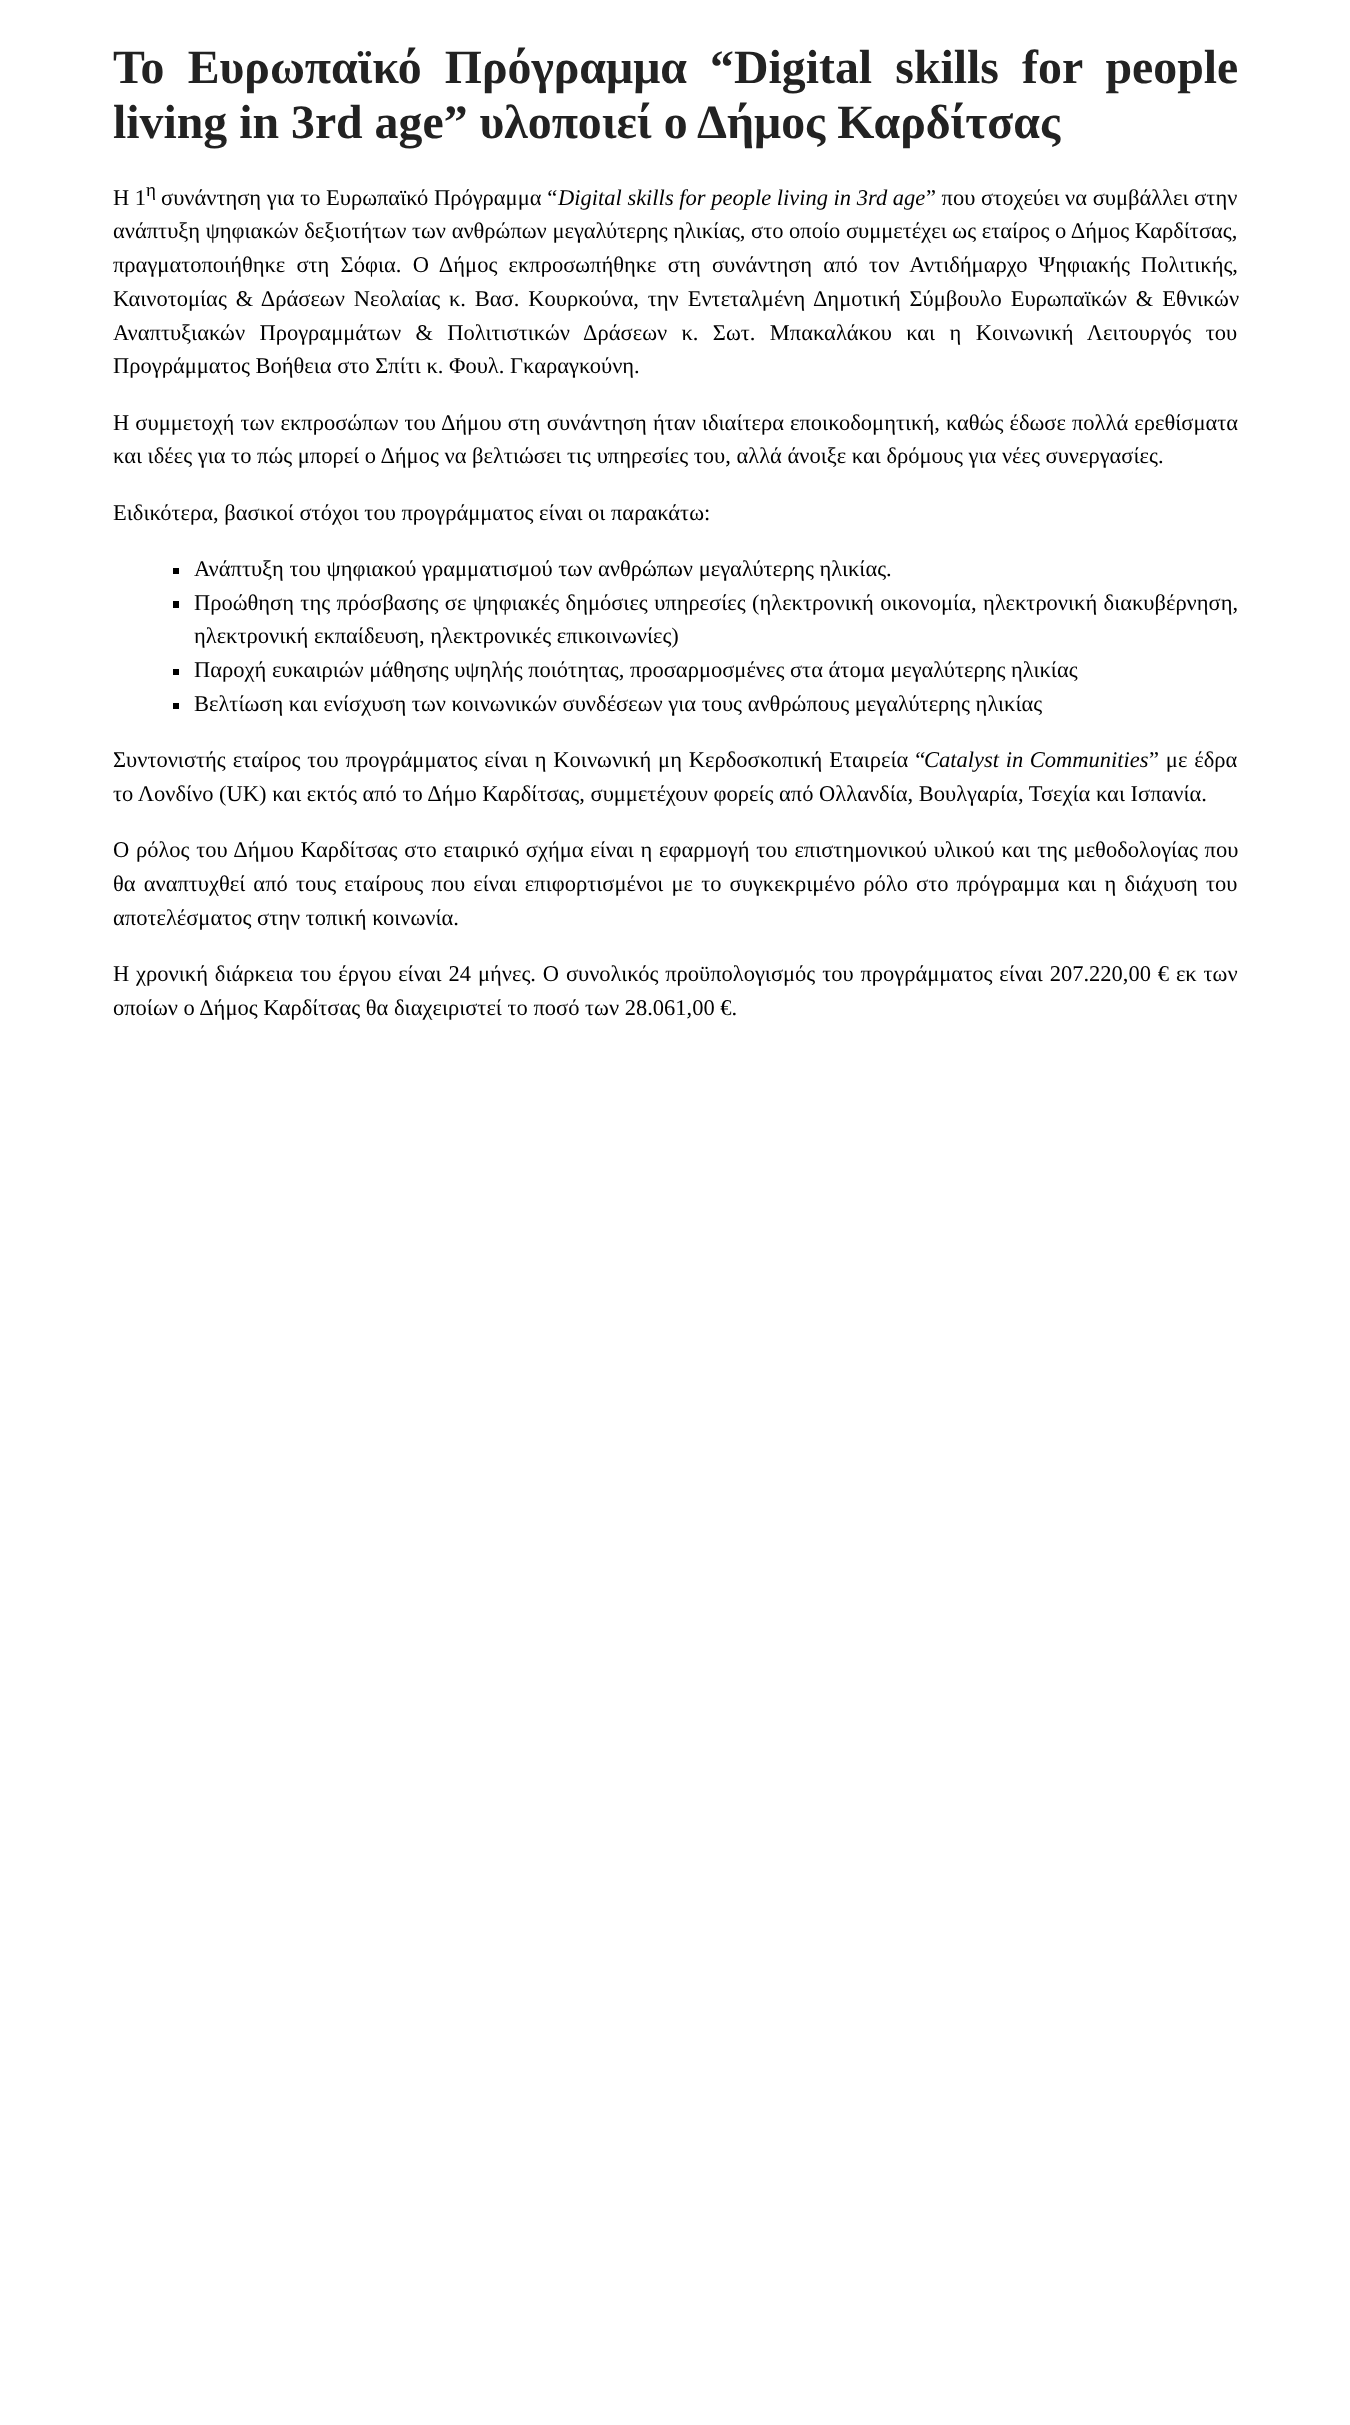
<?xml version="1.0" encoding="UTF-8"?>
<svg xmlns="http://www.w3.org/2000/svg" width="1350" height="2425">
    <rect width="100%" height="100%" fill="#FFFFFF"/>
    <text font-family="Liberation Serif" font-size="47.8" font-weight="700" fill="#222222">
        <tspan x="113" y="83" word-spacing="11.25">Το Ευρωπαϊκό Πρόγραμμα “Digital skills for people</tspan>
        <tspan x="113" y="138">living in 3rd age” υλοποιεί ο Δήμος Καρδίτσας</tspan>
    </text>
    <text x="113" y="205" font-family="Liberation Serif" font-size="22.5" fill="#000000">Η 1</text>
    <text x="146" y="196" font-family="Liberation Serif" font-size="19" fill="#000000">η</text>
    <text x="161" y="205" font-family="Liberation Serif" font-size="22.5" fill="#000000">συνάντηση για το Ευρωπαϊκό Πρόγραμμα “</text>
    <text x="558" y="205" font-family="Liberation Serif" font-size="22.5" font-style="italic" fill="#000000">Digital skills for people living in 3rd age</text>
    <text x="926" y="205" font-family="Liberation Serif" font-size="22.5" fill="#000000">” που στοχεύει να συμβάλλει στην</text>
    <text font-family="Liberation Serif" font-size="22.5" fill="#000000">
        <tspan x="113" y="238">ανάπτυξη ψηφιακών δεξιοτήτων των ανθρώπων μεγαλύτερης ηλικίας, στο οποίο συμμετέχει ως εταίρος ο Δήμος Καρδίτσας,</tspan>
        <tspan x="113" y="272" word-spacing="5.6">πραγματοποιήθηκε στη Σόφια. Ο Δήμος εκπροσωπήθηκε στη συνάντηση από τον Αντιδήμαρχο Ψηφιακής Πολιτικής,</tspan>
        <tspan x="113" y="306" word-spacing="3.25">Καινοτομίας &amp; Δράσεων Νεολαίας κ. Βασ. Κουρκούνα, την Εντεταλμένη Δημοτική Σύμβουλο Ευρωπαϊκών &amp; Εθνικών</tspan>
        <tspan x="113" y="340" word-spacing="8.75">Αναπτυξιακών Προγραμμάτων &amp; Πολιτιστικών Δράσεων κ. Σωτ. Μπακαλάκου και η Κοινωνική Λειτουργός του</tspan>
        <tspan x="113" y="373">Προγράμματος Βοήθεια στο Σπίτι κ. Φουλ. Γκαραγκούνη.</tspan>
    </text>
    <text font-family="Liberation Serif" font-size="22.5" fill="#000000">
        <tspan x="113" y="430" word-spacing="0.5">Η συμμετοχή των εκπροσώπων του Δήμου στη συνάντηση ήταν ιδιαίτερα εποικοδομητική, καθώς έδωσε πολλά ερεθίσματα</tspan>
        <tspan x="113" y="463">και ιδέες για το πώς μπορεί ο Δήμος να βελτιώσει τις υπηρεσίες του, αλλά άνοιξε και δρόμους για νέες συνεργασίες.</tspan>
    </text>
    <text x="113" y="520" font-family="Liberation Serif" font-size="22.5" fill="#000000">Ειδικότερα, βασικοί στόχοι του προγράμματος είναι οι παρακάτω:</text>
    <rect x="173" y="568" width="6" height="6" fill="#000000"/>
    <text x="194" y="576" font-family="Liberation Serif" font-size="22.5" fill="#000000">Ανάπτυξη του ψηφιακού γραμματισμού των ανθρώπων μεγαλύτερης ηλικίας.</text>
    <rect x="173" y="601" width="6" height="7" fill="#000000"/>
    <text font-family="Liberation Serif" font-size="22.5" fill="#000000">
        <tspan x="194" y="610" word-spacing="0.75">Προώθηση της πρόσβασης σε ψηφιακές δημόσιες υπηρεσίες (ηλεκτρονική οικονομία, ηλεκτρονική διακυβέρνηση,</tspan>
        <tspan x="194" y="643">ηλεκτρονική εκπαίδευση, ηλεκτρονικές επικοινωνίες)</tspan>
    </text>
    <rect x="173" y="669" width="6" height="6" fill="#000000"/>
    <text x="194" y="677" font-family="Liberation Serif" font-size="22.5" fill="#000000">Παροχή ευκαιριών μάθησης υψηλής ποιότητας, προσαρμοσμένες στα άτομα μεγαλύτερης ηλικίας</text>
    <rect x="173" y="703" width="6" height="6" fill="#000000"/>
    <text x="194" y="711" font-family="Liberation Serif" font-size="22.5" fill="#000000">Βελτίωση και ενίσχυση των κοινωνικών συνδέσεων για τους ανθρώπους μεγαλύτερης ηλικίας</text>
    <text x="113" y="767" word-spacing="1.25" font-family="Liberation Serif" font-size="22.5" fill="#000000">Συντονιστής εταίρος του προγράμματος είναι η Κοινωνική μη Κερδοσκοπική Εταιρεία “</text>
    <text x="924" y="767" word-spacing="1" font-family="Liberation Serif" font-size="22.5" font-style="italic" fill="#000000">Catalyst in Communities</text>
    <text x="1149" y="767" word-spacing="1.25" font-family="Liberation Serif" font-size="22.5" fill="#000000">” με έδρα</text>
    <text x="113" y="801" font-family="Liberation Serif" font-size="22.5" fill="#000000">το Λονδίνο (UK) και εκτός από το Δήμο Καρδίτσας, συμμετέχουν φορείς από Ολλανδία, Βουλγαρία, Τσεχία και Ισπανία.</text>
    <text font-family="Liberation Serif" font-size="22.5" fill="#000000">
        <tspan x="113" y="857" word-spacing="1.1">Ο ρόλος του Δήμου Καρδίτσας στο εταιρικό σχήμα είναι η εφαρμογή του επιστημονικού υλικού και της μεθοδολογίας που</tspan>
        <tspan x="113" y="891" word-spacing="2.5">θα αναπτυχθεί από τους εταίρους που είναι επιφορτισμένοι με το συγκεκριμένο ρόλο στο πρόγραμμα και η διάχυση του</tspan>
        <tspan x="113" y="925">αποτελέσματος στην τοπική κοινωνία.</tspan>
    </text>
    <text font-family="Liberation Serif" font-size="22.5" fill="#000000">
        <tspan x="113" y="981" word-spacing="1.25">Η χρονική διάρκεια του έργου είναι 24 μήνες. Ο συνολικός προϋπολογισμός του προγράμματος είναι 207.220,00 € εκ των</tspan>
        <tspan x="113" y="1015">οποίων ο Δήμος Καρδίτσας θα διαχειριστεί το ποσό των 28.061,00 €.</tspan>
    </text>
</svg>
